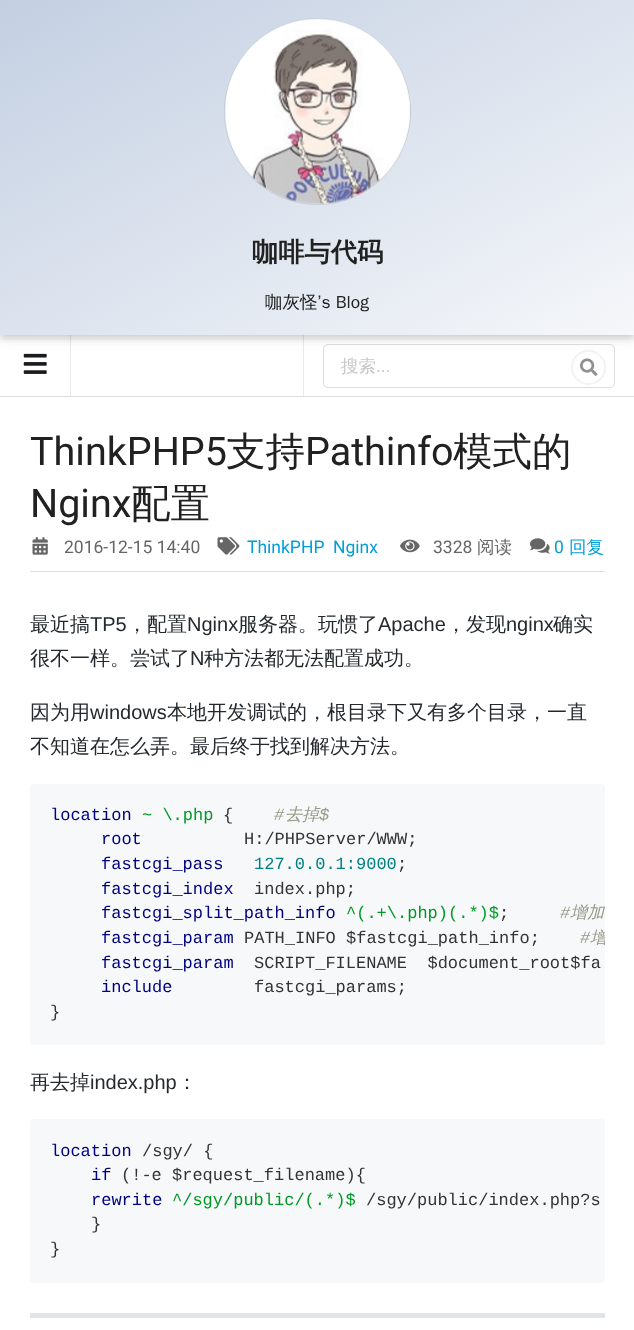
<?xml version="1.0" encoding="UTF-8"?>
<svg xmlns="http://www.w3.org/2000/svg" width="634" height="1330">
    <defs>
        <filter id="blur1" x="-50%" y="-200%" width="200%" height="500%"><feGaussianBlur stdDeviation="6"/></filter>
        <filter id="blur2" x="-50%" y="-200%" width="200%" height="500%"><feGaussianBlur stdDeviation="2.5"/></filter>
        <linearGradient id="g1" gradientUnits="userSpaceOnUse" x1="179" y1="-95" x2="456" y2="430"><stop offset="0" stop-color="#C3CFE2"/><stop offset="1" stop-color="#F5F7FA"/></linearGradient>
        <clipPath id="clip1"><rect x="30" y="784" width="575" height="261" rx="4"/></clipPath>
    </defs>
    <rect width="100%" height="100%" fill="#FFFFFF"/>
    <image x="23" y="353" width="24" height="21" href="img_02.png"/>
    <rect x="70" y="335" width="1" height="61" fill="#E9E9E9"/>
    <rect x="303" y="335" width="1" height="61" fill="#E9E9E9"/>
    <rect x="323.5" y="344.5" width="291" height="43" rx="4.5" fill="none" stroke="#DEDEDE"/>
    <circle cx="588.5" cy="367.5" r="16.5" fill="none" stroke="#F2F2F2" stroke-width="2"/>
    <rect x="0" y="3" width="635" height="335" fill="#222426" fill-opacity="0.15" filter="url(#blur1)"/>
    <rect x="0" y="3" width="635" height="335" fill="#222426" fill-opacity="0.12" filter="url(#blur2)"/>
    <rect x="0" y="0" width="634" height="335" fill="url(#g1)"/>
    <circle cx="317.5" cy="111.5" r="93" fill="none" stroke="#000000" stroke-opacity="0.1"/>
    <image x="224" y="18" width="186" height="186" href="img_01.png"/>
    <text x="252" y="261" font-family="WenQuanYi Zen Hei" font-size="26.25" font-weight="700" fill="#212121">咖啡与代码</text>
    <text x="265" y="308" font-family="WenQuanYi Zen Hei" font-size="17.5" font-weight="500" fill="#212121">咖灰怪’s Blog</text>
    <rect x="0" y="396" width="634" height="1" fill="#DDDDDD"/>
    <text x="341" y="372" font-family="WenQuanYi Zen Hei" font-size="17.5" font-weight="500" fill="#C7C7C7">搜索</text>
    <text x="376" y="372" font-family="Liberation Sans" font-size="17.5" fill="#C7C7C7">...</text>
    <image x="580" y="358" width="18" height="18" href="img_03.png"/>
    <rect x="30" y="571" width="575" height="1" fill="#DEDEDE"/>
    <text x="30" y="465" font-family="Roboto" font-size="39.5" fill="#212121">ThinkPHP5</text>
    <text x="226" y="465" font-family="WenQuanYi Zen Hei" font-size="39.5" font-weight="500" fill="#212121">支持</text>
    <text x="305" y="465" font-family="Roboto" font-size="39.5" fill="#212121">Pathinfo</text>
    <text x="453" y="465" font-family="WenQuanYi Zen Hei" font-size="39.5" font-weight="500" fill="#212121">模式的</text>
    <text x="30" y="517" font-family="Roboto" font-size="39.5" fill="#212121">Nginx</text>
    <text x="131" y="517" font-family="WenQuanYi Zen Hei" font-size="39.5" font-weight="500" fill="#212121">配置</text>
    <image x="32" y="537" width="16" height="18" href="img_04.png"/>
    <text x="64" y="553" font-family="Roboto" font-size="17.5" fill="#666666">2016-12-15 14:40</text>
    <image x="217" y="537" width="23" height="18" href="img_05.png"/>
    <text x="247" y="553" font-family="Roboto" font-size="17.5" fill="#009FDA">ThinkPHP</text>
    <text x="333" y="553" font-family="Roboto" font-size="17.5" fill="#009FDA">Nginx</text>
    <image x="400" y="539" width="20" height="14" href="img_06.png"/>
    <text x="433" y="553" font-family="Roboto" font-size="17.5" fill="#666666">3328</text>
    <text x="477" y="553" font-family="WenQuanYi Zen Hei" font-size="17.5" font-weight="500" fill="#666666">阅读</text>
    <image x="530" y="538" width="20" height="16" href="img_07.png"/>
    <text x="554" y="553" font-family="Roboto" font-size="17.5" fill="#009FDA">0</text>
    <text x="569" y="553" font-family="WenQuanYi Zen Hei" font-size="17.5" font-weight="500" fill="#009FDA">回复</text>
    <text x="30" y="631" font-family="WenQuanYi Zen Hei" font-size="20" font-weight="500" fill="#24292E">最近搞</text>
    <text x="90" y="631" font-family="Liberation Sans" font-size="20" fill="#24292E">TP5</text>
    <text x="127" y="631" font-family="WenQuanYi Zen Hei" font-size="20" font-weight="500" fill="#24292E">，配置</text>
    <text x="187" y="631" font-family="Liberation Sans" font-size="20" fill="#24292E">Nginx</text>
    <text x="238" y="631" font-family="WenQuanYi Zen Hei" font-size="20" font-weight="500" fill="#24292E">服务器。玩惯了</text>
    <text x="378" y="631" font-family="Liberation Sans" font-size="20" fill="#24292E">Apache</text>
    <text x="446" y="631" font-family="WenQuanYi Zen Hei" font-size="20" font-weight="500" fill="#24292E">，发现</text>
    <text x="506" y="631" font-family="Liberation Sans" font-size="20" fill="#24292E">nginx</text>
    <text x="553" y="631" font-family="WenQuanYi Zen Hei" font-size="20" font-weight="500" fill="#24292E">确实</text>
    <text x="30" y="665" font-family="WenQuanYi Zen Hei" font-size="20" font-weight="500" fill="#24292E">很不一样。尝试了</text>
    <text x="190" y="665" font-family="Liberation Sans" font-size="20" fill="#24292E">N</text>
    <text x="204" y="665" font-family="WenQuanYi Zen Hei" font-size="20" font-weight="500" fill="#24292E">种方法都无法配置成功。</text>
    <text x="30" y="719" font-family="WenQuanYi Zen Hei" font-size="20" font-weight="500" fill="#24292E">因为用</text>
    <text x="90" y="719" font-family="Liberation Sans" font-size="20" fill="#24292E">windows</text>
    <text x="167" y="719" font-family="WenQuanYi Zen Hei" font-size="20" font-weight="500" fill="#24292E">本地开发调试的，根目录下又有多个目录，一直</text>
    <text x="30" y="753" font-family="WenQuanYi Zen Hei" font-size="20" font-weight="500" fill="#24292E">不知道在怎么弄。最后终于找到解决方法。</text>
    <rect x="30" y="784" width="575" height="261" rx="4" fill="#F6F8FA"/>
    <text x="50" y="820" font-family="Liberation Mono" font-size="17" fill="#000080">location</text>
    <text x="142" y="820" font-family="Liberation Mono" font-size="17" fill="#009926">~ \.php</text>
    <text x="223" y="820" font-family="Liberation Mono" font-size="17" fill="#333333">{</text>
    <text x="274" y="820" font-family="Liberation Mono" font-size="17" font-style="italic" fill="#999988">#</text>
    <text x="285" y="820" font-family="WenQuanYi Zen Hei" font-size="17" font-weight="500" font-style="italic" fill="#999988">去掉</text>
    <text x="319" y="820" font-family="Liberation Mono" font-size="17" font-style="italic" fill="#999988">$</text>
    <text x="101" y="844" font-family="Liberation Mono" font-size="17" fill="#000080">root</text>
    <text x="244" y="844" font-family="Liberation Mono" font-size="17" fill="#333333">H:/PHPServer/WWW;</text>
    <text x="101" y="869" font-family="Liberation Mono" font-size="17" fill="#000080">fastcgi_pass</text>
    <text x="254" y="869" font-family="Liberation Mono" font-size="17" fill="#008080">127.0.0.1:9000</text>
    <text x="397" y="869" font-family="Liberation Mono" font-size="17" fill="#333333">;</text>
    <text x="101" y="894" font-family="Liberation Mono" font-size="17" fill="#000080">fastcgi_index</text>
    <text x="254" y="894" font-family="Liberation Mono" font-size="17" fill="#333333">index.php;</text>
    <text x="101" y="918" font-family="Liberation Mono" font-size="17" fill="#000080">fastcgi_split_path_info</text>
    <text x="346" y="918" font-family="Liberation Mono" font-size="17" fill="#009926">^(.+\.php)(.*)$</text>
    <text x="499" y="918" font-family="Liberation Mono" font-size="17" fill="#333333">;</text>
    <text x="560" y="918" font-family="Liberation Mono" font-size="17" font-style="italic" fill="#999988">#</text>
    <text x="570" y="918" font-family="WenQuanYi Zen Hei" font-size="17" font-weight="500" font-style="italic" fill="#999988">增加</text>
    <text x="101" y="943" font-family="Liberation Mono" font-size="17" fill="#000080">fastcgi_param</text>
    <text x="244" y="943" font-family="Liberation Mono" font-size="17" fill="#333333">PATH_INFO $fastcgi_path_info;</text>
    <text x="580" y="943" font-family="Liberation Mono" font-size="17" font-style="italic" fill="#999988">#</text>
    <g clip-path="url(#clip1)">
        <text x="590" y="943" font-family="WenQuanYi Zen Hei" font-size="17" font-weight="500" font-style="italic" fill="#999988">增</text>
    </g>
    <text x="101" y="968" font-family="Liberation Mono" font-size="17" fill="#000080">fastcgi_param</text>
    <text x="254" y="968" font-family="Liberation Mono" font-size="17" fill="#333333" xml:space="preserve">SCRIPT_FILENAME  $document_root$fa</text>
    <text x="101" y="992" font-family="Liberation Mono" font-size="17" fill="#000080">include</text>
    <text x="254" y="992" font-family="Liberation Mono" font-size="17" fill="#333333">fastcgi_params;</text>
    <text x="50" y="1017" font-family="Liberation Mono" font-size="17" fill="#333333">}</text>
    <text x="30" y="1089" font-family="WenQuanYi Zen Hei" font-size="20" font-weight="500" fill="#24292E">再去掉</text>
    <text x="90" y="1089" font-family="Liberation Sans" font-size="20" fill="#24292E">index.php</text>
    <text x="177" y="1089" font-family="WenQuanYi Zen Hei" font-size="20" font-weight="500" fill="#24292E">：</text>
    <rect x="30" y="1119" width="575" height="164" rx="4" fill="#F6F8FA"/>
    <text x="50" y="1156" font-family="Liberation Mono" font-size="17" fill="#000080">location</text>
    <text x="142" y="1156" font-family="Liberation Mono" font-size="17" fill="#333333">/sgy/ {</text>
    <text x="91" y="1180" font-family="Liberation Mono" font-size="17" fill="#000080">if</text>
    <text x="121" y="1180" font-family="Liberation Mono" font-size="17" fill="#333333">(!-e $request_filename){</text>
    <text x="91" y="1205" font-family="Liberation Mono" font-size="17" fill="#000080">rewrite</text>
    <text x="172" y="1205" font-family="Liberation Mono" font-size="17" fill="#009926">^/sgy/public/(.*)$</text>
    <text x="366" y="1205" font-family="Liberation Mono" font-size="17" fill="#333333">/sgy/public/index.php?s</text>
    <text x="91" y="1229" font-family="Liberation Mono" font-size="17" fill="#333333">}</text>
    <text x="50" y="1254" font-family="Liberation Mono" font-size="17" fill="#333333">}</text>
    <rect x="30" y="1313" width="575" height="5" fill="#E1E4E8"/>
</svg>
